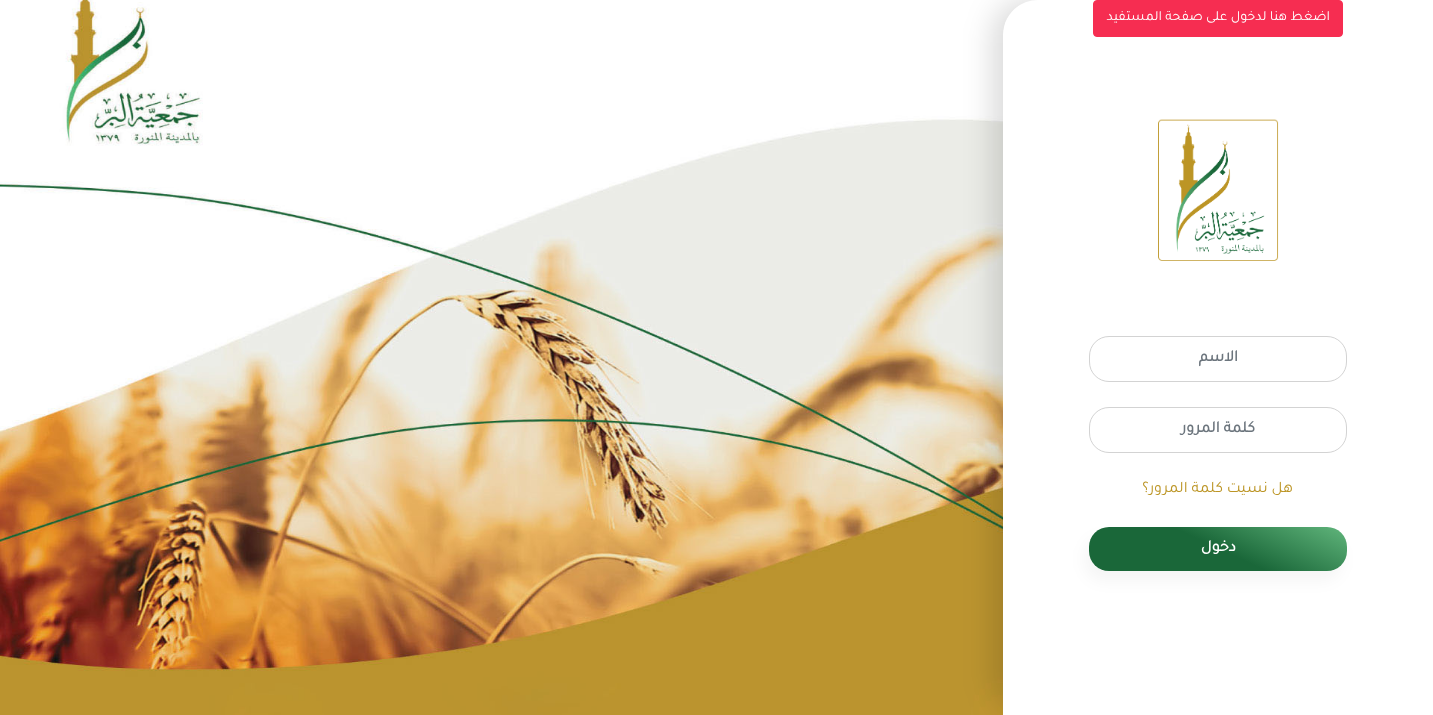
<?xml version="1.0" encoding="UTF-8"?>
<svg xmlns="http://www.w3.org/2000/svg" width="1433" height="715">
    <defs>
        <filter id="blur1" x="-50%" y="-200%" width="200%" height="500%"><feGaussianBlur stdDeviation="15"/></filter>
        <filter id="blur2" x="-50%" y="-200%" width="200%" height="500%"><feGaussianBlur stdDeviation="7.5"/></filter>
        <linearGradient id="g1" gradientUnits="userSpaceOnUse" x1="1187" y1="616" x2="1250" y2="481"><stop offset="0.5" stop-color="#1A6739"/><stop offset="1" stop-color="#61B67C"/></linearGradient>
    </defs>
    <rect width="100%" height="100%" fill="#FFFFFF"/>
    <image x="0" y="0" width="1038" height="715" href="img_02.png"/>
    <rect x="993" y="0" width="430" height="715" rx="35" fill="#000000" fill-opacity="0.15" filter="url(#blur1)"/>
    <path d="M 1038 0 H 1433 V 715 H 1003 V 35 C 1003 15.5 1018.5 0 1038 0 Z" fill="#FFFFFF"/>
    <rect x="1093.5" y="0.5" width="249" height="36" rx="3.5" fill="#F62D51" stroke="#F62D51"/>
    <text x="1330" y="20" font-family="Tajawal" font-size="14" direction="rtl" fill="#FFFFFF">اضغط هنا لدخول على صفحة المستفيد</text>
    <image x="1158" y="119" width="121" height="142" href="img_01.png"/>
    <rect x="1089.5" y="336.5" width="257" height="45" rx="19.5" fill="none" stroke="#D3D3D3"/>
    <text x="1238" y="361" font-family="Tajawal" font-size="16" font-weight="700" direction="rtl" fill="#6C757D">الاسم</text>
    <rect x="1089.5" y="407.5" width="257" height="45" rx="19.5" fill="none" stroke="#D3D3D3"/>
    <text x="1255" y="432" font-family="Tajawal" font-size="16" font-weight="700" direction="rtl" fill="#6C757D">كلمة المرور</text>
    <text x="1293" y="492" font-family="Tajawal" font-size="16" direction="rtl" fill="#BC9525">هل نسيت كلمة المرور؟</text>
    <rect x="1084" y="537" width="258" height="44" rx="20" fill="#000000" fill-opacity="0.04" filter="url(#blur2)"/>
    <rect x="1089" y="527" width="258" height="44" rx="20" fill="url(#g1)"/>
    <text x="1236" y="551" font-family="Tajawal" font-size="16" font-weight="700" direction="rtl" fill="#FFFFFF">دخول</text>
</svg>
